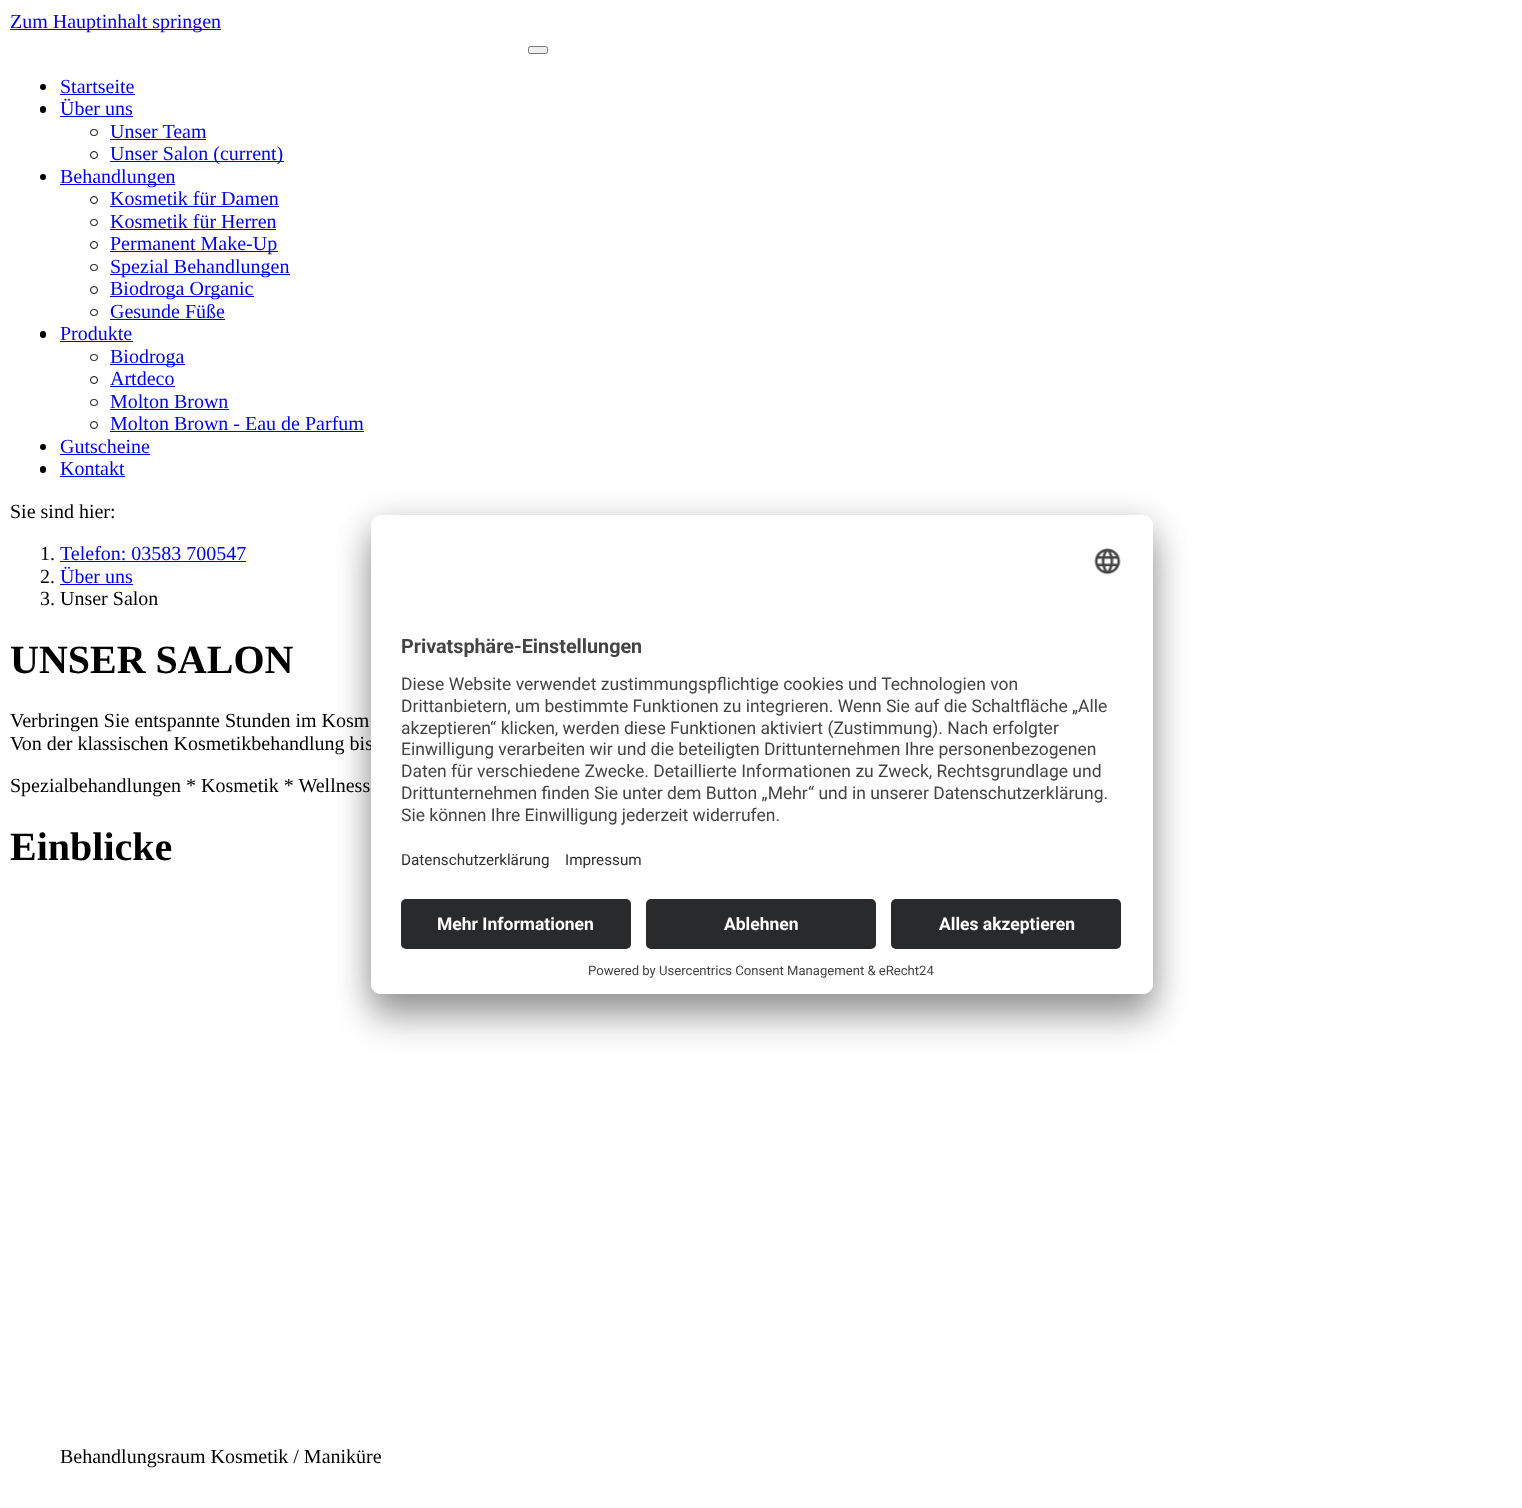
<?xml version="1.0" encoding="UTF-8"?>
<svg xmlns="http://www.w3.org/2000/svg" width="1522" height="1508">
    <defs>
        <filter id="blur1" x="-50%" y="-200%" width="200%" height="500%"><feGaussianBlur stdDeviation="17.5"/></filter>
        <filter id="blur2" x="-50%" y="-200%" width="200%" height="500%"><feGaussianBlur stdDeviation="16"/></filter>
        <clipPath id="clip1"><rect x="371" y="515" width="782" height="479" rx="10"/></clipPath>
        <clipPath id="clip2"><path d="M 381 515 H 1143 C 1148.5 515 1153 519.5 1153 525 V 889 H 371 V 525 C 371 519.5 375.5 515 381 515 Z"/></clipPath>
    </defs>
    <rect width="100%" height="100%" fill="#FFFFFF"/>
    <rect x="10" y="29" width="211" height="1" fill="#0000EE"/>
    <text x="10" y="28" font-family="Liberation Serif" font-size="20" fill="#0000EE">Zum Hauptinhalt springen</text>
    <rect x="528.5" y="46.5" width="19" height="7" rx="2" fill="#EFEFEF" stroke="#767676"/>
    <circle cx="43" cy="87" r="3" fill="#000000"/>
    <text x="60" y="93" font-family="Liberation Serif" font-size="20" fill="#0000EE">Startseite</text>
    <rect x="60" y="94" width="75" height="1" fill="#0000EE"/>
    <rect x="40" y="106" width="6" height="7" rx="3" fill="#000000"/>
    <text x="60" y="115" font-family="Liberation Serif" font-size="20" fill="#0000EE">Über uns</text>
    <rect x="60" y="116" width="73" height="1" fill="#0000EE"/>
    <rect x="90.5" y="129.5" width="7" height="6" rx="3" fill="none" stroke="#000000"/>
    <text x="110" y="138" font-family="Liberation Serif" font-size="20" fill="#0000EE">Unser Team</text>
    <rect x="110" y="139" width="96" height="1" fill="#0000EE"/>
    <circle cx="94" cy="155" r="3.5" fill="none" stroke="#000000"/>
    <rect x="110" y="161" width="174" height="1" fill="#0000EE"/>
    <text x="110" y="160" font-family="Liberation Serif" font-size="20" fill="#0000EE">Unser Salon (current)</text>
    <circle cx="43" cy="177" r="3" fill="#000000"/>
    <rect x="60" y="184" width="115" height="1" fill="#0000EE"/>
    <text x="60" y="183" font-family="Liberation Serif" font-size="20" fill="#0000EE">Behandlungen</text>
    <circle cx="94" cy="200" r="3.5" fill="none" stroke="#000000"/>
    <text x="110" y="205" font-family="Liberation Serif" font-size="20" fill="#0000EE">Kosmetik für Damen</text>
    <rect x="110" y="206" width="169" height="1" fill="#0000EE"/>
    <rect x="90.5" y="219.5" width="7" height="6" rx="3" fill="none" stroke="#000000"/>
    <text x="110" y="228" font-family="Liberation Serif" font-size="20" fill="#0000EE">Kosmetik für Herren</text>
    <rect x="110" y="229" width="166" height="1" fill="#0000EE"/>
    <circle cx="94" cy="245" r="3.5" fill="none" stroke="#000000"/>
    <rect x="110" y="251" width="168" height="1" fill="#0000EE"/>
    <text x="110" y="250" font-family="Liberation Serif" font-size="20" fill="#0000EE">Permanent Make-Up</text>
    <rect x="90.5" y="264.5" width="7" height="6" rx="3" fill="none" stroke="#000000"/>
    <rect x="110" y="274" width="180" height="1" fill="#0000EE"/>
    <text x="110" y="273" font-family="Liberation Serif" font-size="20" fill="#0000EE">Spezial Behandlungen</text>
    <circle cx="94" cy="290" r="3.5" fill="none" stroke="#000000"/>
    <rect x="110" y="296" width="144" height="1" fill="#0000EE"/>
    <text x="110" y="295" font-family="Liberation Serif" font-size="20" fill="#0000EE">Biodroga Organic</text>
    <rect x="90.5" y="309.5" width="7" height="6" rx="3" fill="none" stroke="#000000"/>
    <text x="110" y="318" font-family="Liberation Serif" font-size="20" fill="#0000EE">Gesunde Füße</text>
    <rect x="110" y="319" width="115" height="1" fill="#0000EE"/>
    <rect x="40" y="331" width="6" height="7" rx="3" fill="#000000"/>
    <text x="60" y="340" font-family="Liberation Serif" font-size="20" fill="#0000EE">Produkte</text>
    <rect x="60" y="341" width="73" height="1" fill="#0000EE"/>
    <rect x="90.5" y="354.5" width="7" height="6" rx="3" fill="none" stroke="#000000"/>
    <rect x="110" y="364" width="75" height="1" fill="#0000EE"/>
    <text x="110" y="363" font-family="Liberation Serif" font-size="20" fill="#0000EE">Biodroga</text>
    <circle cx="94" cy="380" r="3.5" fill="none" stroke="#000000"/>
    <text x="110" y="385" font-family="Liberation Serif" font-size="20" fill="#0000EE">Artdeco</text>
    <rect x="110" y="386" width="65" height="1" fill="#0000EE"/>
    <rect x="90.5" y="399.5" width="7" height="6" rx="3" fill="none" stroke="#000000"/>
    <text x="110" y="408" font-family="Liberation Serif" font-size="20" fill="#0000EE">Molton Brown</text>
    <rect x="110" y="409" width="119" height="1" fill="#0000EE"/>
    <circle cx="94" cy="425" r="3.5" fill="none" stroke="#000000"/>
    <text x="110" y="430" font-family="Liberation Serif" font-size="20" fill="#0000EE">Molton Brown - Eau de Parfum</text>
    <rect x="110" y="431" width="254" height="1" fill="#0000EE"/>
    <circle cx="43" cy="447" r="3" fill="#000000"/>
    <text x="60" y="453" font-family="Liberation Serif" font-size="20" fill="#0000EE">Gutscheine</text>
    <rect x="60" y="454" width="90" height="1" fill="#0000EE"/>
    <rect x="40" y="466" width="6" height="7" rx="3" fill="#000000"/>
    <text x="60" y="475" font-family="Liberation Serif" font-size="20" fill="#0000EE">Kontakt</text>
    <rect x="60" y="476" width="65" height="1" fill="#0000EE"/>
    <text x="10" y="518" font-family="Liberation Serif" font-size="20" fill="#000000">Sie sind hier:</text>
    <text x="40" y="560" font-family="Liberation Serif" font-size="20" fill="#000000">1.</text>
    <text x="60" y="560" font-family="Liberation Serif" font-size="20" fill="#0000EE">Telefon: 03583 700547</text>
    <rect x="60" y="561" width="186" height="1" fill="#0000EE"/>
    <text x="40" y="583" font-family="Liberation Serif" font-size="20" fill="#000000">2.</text>
    <text x="60" y="583" font-family="Liberation Serif" font-size="20" fill="#0000EE">Über uns</text>
    <rect x="60" y="584" width="73" height="1" fill="#0000EE"/>
    <text x="40" y="605" font-family="Liberation Serif" font-size="20" fill="#000000">3. Unser Salon</text>
    <text x="10" y="673" font-family="Liberation Serif" font-size="40" font-weight="700" fill="#000000">UNSER SALON</text>
    <text font-family="Liberation Serif" font-size="20" fill="#000000">
        <tspan x="10" y="727">Verbringen Sie entspannte Stunden im Kosm</tspan>
        <tspan x="10" y="750">Von der klassischen Kosmetikbehandlung bis</tspan>
    </text>
    <text x="10" y="792" font-family="Liberation Serif" font-size="20" fill="#000000">Spezialbehandlungen * Kosmetik * Wellness</text>
    <text x="10" y="860" font-family="Liberation Serif" font-size="40" font-weight="700" fill="#000000">Einblicke</text>
    <text x="60" y="1463" font-family="Liberation Serif" font-size="20" fill="#000000">Behandlungsraum Kosmetik / Maniküre</text>
    <rect x="371" y="540" width="782" height="479" rx="10" fill="#000000" fill-opacity="0.3" filter="url(#blur1)"/>
    <rect x="371" y="521" width="782" height="479" rx="10" fill="#000000" fill-opacity="0.22" filter="url(#blur2)"/>
    <rect x="371" y="515" width="782" height="479" rx="10" fill="#FFFFFF"/>
    <g clip-path="url(#clip1)">
        <g clip-path="url(#clip2)">
            <rect x="371" y="516" width="782" height="373" fill="#FFFFFF"/>
        </g>
    </g>
    <image x="1094" y="548" width="27" height="27" href="img_01.png"/>
    <text x="401" y="653" font-family="Roboto" font-size="19.75" font-weight="700" fill="#444444">Privatsphäre-Einstellungen</text>
    <text font-family="Roboto" font-size="17.5" fill="#444444">
        <tspan x="401" y="690">Diese Website verwendet zustimmungspflichtige cookies und Technologien von</tspan>
        <tspan x="401" y="712">Drittanbietern, um bestimmte Funktionen zu integrieren. Wenn Sie auf die Schaltfläche „Alle</tspan>
        <tspan x="401" y="734">akzeptieren“ klicken, werden diese Funktionen aktiviert (Zustimmung). Nach erfolgter</tspan>
        <tspan x="401" y="755">Einwilligung verarbeiten wir und die beteiligten Drittunternehmen Ihre personenbezogenen</tspan>
        <tspan x="401" y="777">Daten für verschiedene Zwecke. Detaillierte Informationen zu Zweck, Rechtsgrundlage und</tspan>
        <tspan x="401" y="799">Drittunternehmen finden Sie unter dem Button „Mehr“ und in unserer Datenschutzerklärung.</tspan>
        <tspan x="401" y="821">Sie können Ihre Einwilligung jederzeit widerrufen.</tspan>
    </text>
    <text x="401" y="865" font-family="Roboto" font-size="15.25" fill="#303030">Datenschutzerklärung</text>
    <text x="565" y="865" font-family="Roboto" font-size="15.25" fill="#303030">Impressum</text>
    <path d="M 371 889 H 1153 V 984 C 1153 989.5 1148.5 994 1143 994 H 381 C 375.5 994 371 989.5 371 984 Z" fill="#FFFFFF"/>
    <rect x="401" y="899" width="230" height="50" rx="5" fill="#292A2B"/>
    <text x="437" y="930" font-family="Roboto" font-size="17.5" font-weight="700" fill="#FFFFFF">Mehr Informationen</text>
    <rect x="646" y="899" width="230" height="50" rx="5" fill="#292A2B"/>
    <text x="724" y="930" font-family="Roboto" font-size="17.5" font-weight="700" fill="#FFFFFF">Ablehnen</text>
    <rect x="891" y="899" width="230" height="50" rx="5" fill="#292A2B"/>
    <text x="939" y="930" font-family="Roboto" font-size="17.5" font-weight="700" fill="#FFFFFF">Alles akzeptieren</text>
    <text x="588" y="975" font-family="Roboto" font-size="13.1" fill="#444444">Powered by Usercentrics Consent Management &amp; eRecht24</text>
</svg>
